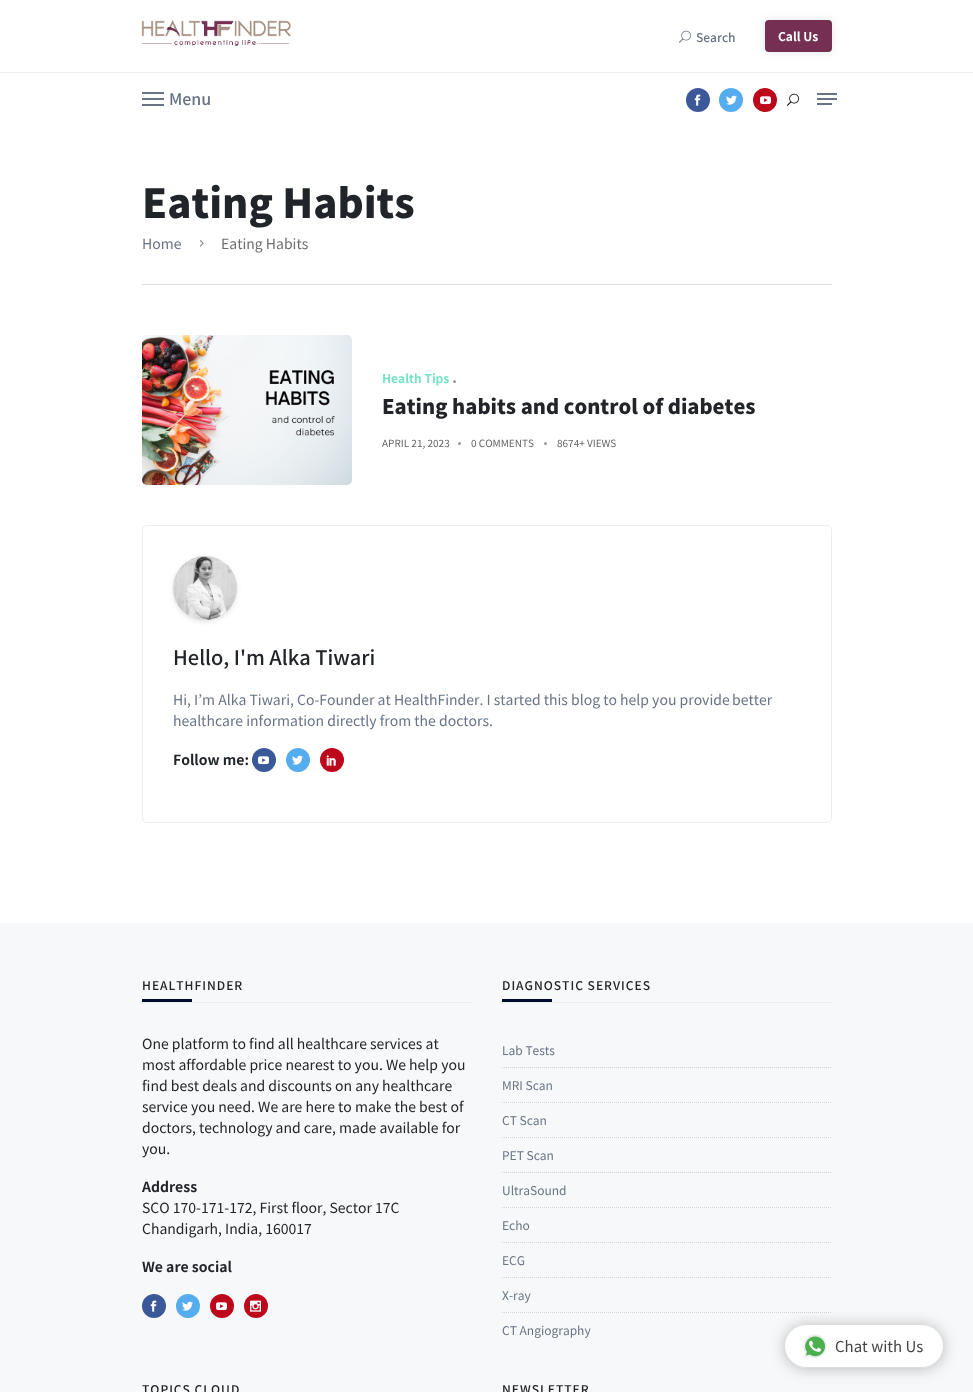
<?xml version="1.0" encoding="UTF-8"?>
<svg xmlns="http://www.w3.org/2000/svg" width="973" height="1392">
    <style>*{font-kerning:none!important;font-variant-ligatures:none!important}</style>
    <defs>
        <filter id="blur1" x="-50%" y="-200%" width="200%" height="500%"><feGaussianBlur stdDeviation="5"/></filter>
        <filter id="blur2" x="-50%" y="-200%" width="200%" height="500%"><feGaussianBlur stdDeviation="2"/></filter>
        <filter id="blur3" x="-50%" y="-200%" width="200%" height="500%"><feGaussianBlur stdDeviation="7.5"/></filter>
    </defs>
    <rect width="100%" height="100%" fill="#FFFFFF"/>
    <rect x="0" y="72" width="973" height="1" fill="#EAECEE"/>
    <image x="141" y="20" width="150" height="26" href="img_01.png"/>
    <image x="679" y="30" width="12" height="13" href="img_02.png"/>
    <text x="696" y="42" font-family="Noto Sans JP" font-size="12" font-weight="500" fill="#687385">Search</text>
    <rect x="765" y="20" width="67" height="32" rx="4" fill="#000000" fill-opacity="0.1" filter="url(#blur1)"/>
    <rect x="765" y="20" width="67" height="32" rx="4" fill="#752F53"/>
    <text x="778" y="41" font-family="Noto Sans JP" font-size="12" font-weight="700" fill="#FFFFFF">Call Us</text>
    <rect x="142" y="98" width="22" height="2" fill="#687385"/>
    <rect x="142" y="92" width="22" height="2" fill="#687385"/>
    <rect x="142" y="104" width="22" height="2" fill="#687385"/>
    <text x="169" y="105" font-family="Noto Sans JP" font-size="16" font-weight="500" fill="#687385">Menu</text>
    <circle cx="698" cy="100" r="12" fill="#3B5999"/>
    <image x="694" y="94" width="7" height="12" href="img_03.png"/>
    <circle cx="731" cy="100" r="12" fill="#55ACEE"/>
    <image x="726" y="95" width="11" height="10" href="img_04.png"/>
    <circle cx="765" cy="100" r="12" fill="#BD081C"/>
    <image x="760" y="96" width="11" height="9" href="img_05.png"/>
    <image x="787" y="93" width="12" height="13" href="img_06.png"/>
    <rect x="817" y="103" width="15" height="2" fill="#687385"/>
    <rect x="817" y="93" width="20" height="2" fill="#687385"/>
    <rect x="817" y="98" width="20" height="2" fill="#687385"/>
    <text x="142" y="218" font-family="Noto Sans JP" font-size="40" font-weight="900" fill="#212529">Eating Habits</text>
    <text x="142" y="249" font-family="Noto Sans JP" font-size="14" fill="#687385">Home</text>
    <image x="200" y="240" width="4" height="7" href="img_07.png"/>
    <text x="221" y="249" font-family="Noto Sans JP" font-size="14" fill="#6E6E6E">Eating Habits</text>
    <rect x="142" y="284" width="690" height="1" fill="#E1E1E1"/>
    <image x="142" y="335" width="210" height="150" href="img_08.png"/>
    <text x="382" y="383" font-family="Noto Sans JP" font-size="12" font-weight="700" fill="#76E1C6">Health Tips</text>
    <circle cx="454.5" cy="381.5" r="1.5" fill="#999999"/>
    <text x="382" y="414" font-family="Noto Sans JP" font-size="20" font-weight="900" fill="#212529">Eating habits and control of diabetes</text>
    <text x="382" y="447" font-family="Noto Sans JP" font-size="10" fill="#666666">APRIL 21, 2023</text>
    <circle cx="459.5" cy="443.5" r="1.5" fill="#999999"/>
    <text x="471" y="447" font-family="Noto Sans JP" font-size="10" fill="#666666">0 COMMENTS</text>
    <circle cx="545.5" cy="443.5" r="1.5" fill="#999999"/>
    <text x="557" y="447" font-family="Noto Sans JP" font-size="10" fill="#666666">8674+ VIEWS</text>
    <rect x="142.5" y="525.5" width="689" height="297" rx="4.5" fill="none" stroke="#EAECEE"/>
    <rect x="173" y="558" width="64" height="64" rx="32" fill="#6C6C6C" fill-opacity="0.2" filter="url(#blur2)"/>
    <image x="173" y="556" width="64" height="64" href="img_09.png"/>
    <text x="173" y="665" font-family="Noto Sans JP" font-size="20" font-weight="500" fill="#212529">Hello, I'm Alka Tiwari</text>
    <text x="173" y="705" font-family="Noto Sans JP" font-size="14" fill="#687385">Hi, I’m Alka Tiwari, Co-Founder at HealthFinder. I started this blog to help you provide</text>
    <text x="732" y="705" font-family="Noto Sans JP" font-size="14" fill="#687385">better</text>
    <text x="173" y="726" font-family="Noto Sans JP" font-size="14" fill="#687385">healthcare information directly from the doctors.</text>
    <text x="173" y="765" font-family="Noto Sans JP" font-size="14" font-weight="700" fill="#212529">Follow me:</text>
    <circle cx="264" cy="760" r="12" fill="#3B5999"/>
    <image x="258" y="756" width="11" height="9" href="img_10.png"/>
    <circle cx="298" cy="760" r="12" fill="#55ACEE"/>
    <image x="292" y="755" width="11" height="10" href="img_04.png"/>
    <circle cx="332" cy="760" r="12" fill="#BD081C"/>
    <image x="326" y="755" width="10" height="11" href="img_11.png"/>
    <rect x="0" y="923" width="973" height="469" fill="#F7F8F9"/>
    <rect x="142" y="1002" width="330" height="1" fill="#EAECEE"/>
    <text x="142" y="990" font-family="Noto Sans JP" font-size="12" font-weight="500" letter-spacing="1" fill="#212529">HEALTHFINDER</text>
    <rect x="142" y="999" width="50" height="3" fill="#000C2D"/>
    <text font-family="Noto Sans JP" font-size="14" fill="#212529">
        <tspan x="142" y="1049">One platform to find all healthcare services at</tspan>
        <tspan x="142" y="1070">most affordable price nearest to you. We help you</tspan>
        <tspan x="142" y="1091">find best deals and discounts on any healthcare</tspan>
        <tspan x="142" y="1112">service you need. We are here to make the best of</tspan>
        <tspan x="142" y="1133">doctors, technology and care, made available for</tspan>
        <tspan x="142" y="1154">you.</tspan>
    </text>
    <text x="142" y="1192" font-family="Noto Sans JP" font-size="14" font-weight="700" fill="#212529">Address</text>
    <text font-family="Noto Sans JP" font-size="14" fill="#212529">
        <tspan x="142" y="1213">SCO 170-171-172, First floor, Sector 17C</tspan>
        <tspan x="142" y="1234">Chandigarh, India, 160017</tspan>
    </text>
    <text x="142" y="1272" font-family="Noto Sans JP" font-size="14" font-weight="700" fill="#212529">We are social</text>
    <circle cx="154" cy="1306" r="12" fill="#3B5999"/>
    <image x="150" y="1300" width="7" height="12" href="img_03.png"/>
    <circle cx="188" cy="1306" r="12" fill="#55ACEE"/>
    <image x="182" y="1301" width="11" height="10" href="img_04.png"/>
    <circle cx="222" cy="1306" r="12" fill="#BD081C"/>
    <image x="216" y="1302" width="11" height="9" href="img_05.png"/>
    <circle cx="256" cy="1306" r="12" fill="#BD081C"/>
    <image x="250" y="1300" width="11" height="12" href="img_12.png"/>
    <rect x="502" y="1002" width="330" height="1" fill="#EAECEE"/>
    <text x="502" y="990" font-family="Noto Sans JP" font-size="12" font-weight="500" letter-spacing="1" fill="#212529">DIAGNOSTIC SERVICES</text>
    <rect x="502" y="999" width="50" height="3" fill="#000C2D"/>
    <path d="M 502 1067.5 H 832" fill="none" stroke="#D2D3D4" stroke-dasharray="1 1"/>
    <text x="502" y="1055" font-family="Noto Sans JP" font-size="12" fill="#687385">Lab Tests</text>
    <path d="M 502 1102.5 H 832" fill="none" stroke="#D2D3D4" stroke-dasharray="1 1"/>
    <text x="502" y="1090" font-family="Noto Sans JP" font-size="12" fill="#687385">MRI Scan</text>
    <path d="M 502 1137.5 H 832" fill="none" stroke="#D2D3D4" stroke-dasharray="1 1"/>
    <text x="502" y="1125" font-family="Noto Sans JP" font-size="12" fill="#687385">CT Scan</text>
    <path d="M 502 1172.5 H 832" fill="none" stroke="#D2D3D4" stroke-dasharray="1 1"/>
    <text x="502" y="1160" font-family="Noto Sans JP" font-size="12" fill="#687385">PET Scan</text>
    <path d="M 502 1207.5 H 832" fill="none" stroke="#D2D3D4" stroke-dasharray="1 1"/>
    <text x="502" y="1195" font-family="Noto Sans JP" font-size="12" fill="#687385">UltraSound</text>
    <path d="M 502 1242.5 H 832" fill="none" stroke="#D2D3D4" stroke-dasharray="1 1"/>
    <text x="502" y="1230" font-family="Noto Sans JP" font-size="12" fill="#687385">Echo</text>
    <path d="M 502 1277.5 H 832" fill="none" stroke="#D2D3D4" stroke-dasharray="1 1"/>
    <text x="502" y="1265" font-family="Noto Sans JP" font-size="12" fill="#687385">ECG</text>
    <path d="M 502 1312.5 H 832" fill="none" stroke="#D2D3D4" stroke-dasharray="1 1"/>
    <text x="502" y="1300" font-family="Noto Sans JP" font-size="12" fill="#687385">X-ray</text>
    <text x="502" y="1335" font-family="Noto Sans JP" font-size="12" fill="#687385">CT Angiography</text>
    <text x="142" y="1394" font-family="Noto Sans JP" font-size="12" font-weight="500" letter-spacing="1" fill="#212529">TOPICS CLOUD</text>
    <text x="502" y="1394" font-family="Noto Sans JP" font-size="12" font-weight="500" letter-spacing="1" fill="#212529">NEWSLETTER</text>
    <rect x="785" y="1326" width="158" height="42" rx="21" fill="#202124" fill-opacity="0.28" filter="url(#blur3)"/>
    <rect x="785" y="1325" width="158" height="42" rx="21" fill="#FFFFFF"/>
    <image x="803" y="1334" width="24" height="24" href="img_13.png"/>
    <text x="835" y="1352" font-family="Noto Sans JP" font-size="15" fill="#444444">Chat with Us</text>
</svg>
